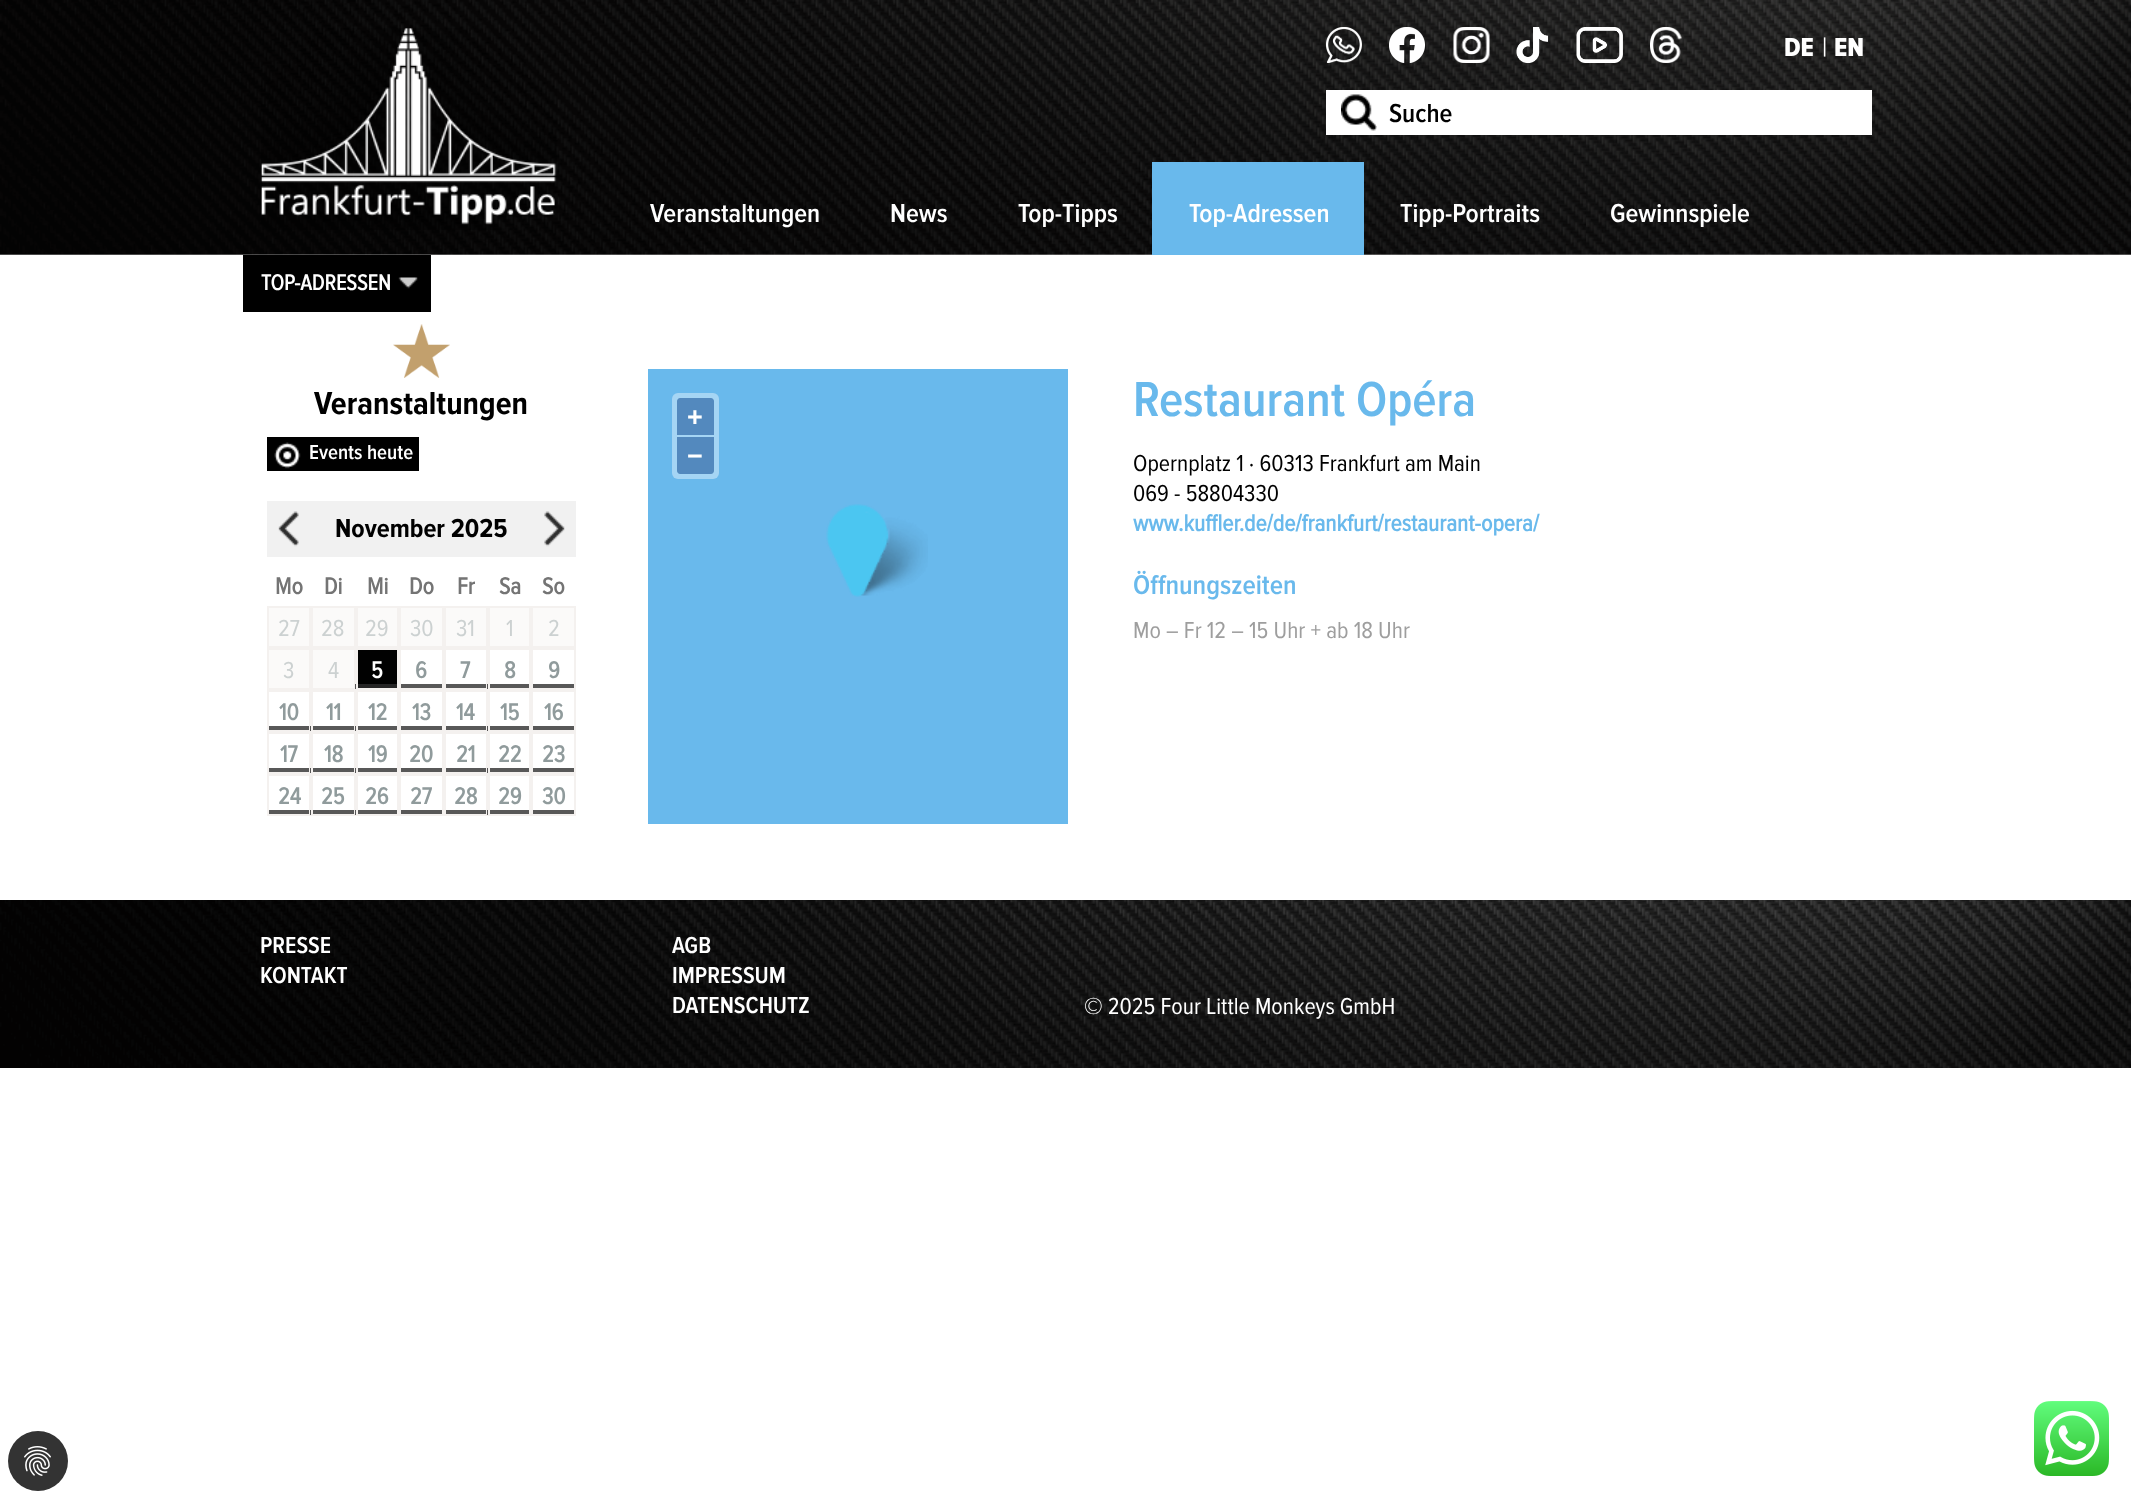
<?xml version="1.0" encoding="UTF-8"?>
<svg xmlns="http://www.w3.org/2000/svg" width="2131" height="1498">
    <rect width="100%" height="100%" fill="#FFFFFF"/>
    <image x="0" y="0" width="2131" height="255" href="img_01.png"/>
    <image x="1326" y="27" width="36" height="36" href="img_02.png"/>
    <image x="1389" y="27" width="36" height="36" href="img_03.png"/>
    <image x="1453" y="27" width="37" height="36" href="img_04.png"/>
    <image x="1516" y="27" width="32" height="36" href="img_05.png"/>
    <image x="1576" y="27" width="47" height="36" href="img_06.png"/>
    <image x="1650" y="27" width="32" height="36" href="img_07.png"/>
    <image x="261" y="28" width="296" height="202" href="img_08.png"/>
    <text x="1784" y="56" font-family="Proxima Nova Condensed" font-size="27" font-weight="800" fill="#FFFFFF">DE</text>
    <text x="1822" y="56" font-family="Proxima Nova Condensed" font-size="27" fill="#FFFFFF">|</text>
    <text x="1834" y="56" font-family="Proxima Nova Condensed" font-size="27" font-weight="800" fill="#FFFFFF">EN</text>
    <text x="650" y="222" font-family="Proxima Nova Condensed" font-size="27" font-weight="600" fill="#FFFFFF">Veranstaltungen</text>
    <text x="890" y="222" font-family="Proxima Nova Condensed" font-size="27" font-weight="600" fill="#FFFFFF">News</text>
    <text x="1018" y="222" font-family="Proxima Nova Condensed" font-size="27" font-weight="600" fill="#FFFFFF">Top-Tipps</text>
    <rect x="1152" y="162" width="212" height="93" fill="#69B9EC"/>
    <text x="1189" y="222" font-family="Proxima Nova Condensed" font-size="27" font-weight="600" fill="#FFFFFF">Top-Adressen</text>
    <text x="1400" y="222" font-family="Proxima Nova Condensed" font-size="27" font-weight="600" fill="#FFFFFF">Tipp-Portraits</text>
    <text x="1610" y="222" font-family="Proxima Nova Condensed" font-size="27" font-weight="600" fill="#FFFFFF">Gewinnspiele</text>
    <rect x="243" y="255" width="188" height="57" fill="#000000"/>
    <image x="398" y="277" width="20" height="12" href="img_09.png"/>
    <text x="261" y="290" font-family="'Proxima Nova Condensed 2'" font-size="22.5" font-weight="700" fill="#FFFFFF">TOP-ADRESSEN</text>
    <rect x="1326" y="90" width="546" height="45" fill="#FFFFFF"/>
    <image x="1341" y="94" width="36" height="37" href="img_10.png"/>
    <text x="1389" y="122" font-family="Proxima Nova Condensed" font-size="27" font-weight="600" fill="#000000">Suche</text>
    <image x="393" y="324" width="57" height="54" href="img_11.png"/>
    <text x="314" y="414" font-family="Proxima Nova Condensed" font-size="33" font-weight="700" fill="#000000">Veranstaltungen</text>
    <rect x="267" y="437" width="152" height="34" fill="#000000"/>
    <image x="274" y="442" width="27" height="27" href="img_12.png"/>
    <text x="309" y="459" font-family="Proxima Nova Condensed" font-size="21" font-weight="600" fill="#FFFFFF">Events heute</text>
    <rect x="267" y="501" width="309" height="56" fill="#F1F1F1"/>
    <image x="278" y="511" width="21" height="36" href="img_13.png"/>
    <text x="335" y="537" font-family="Proxima Nova Condensed" font-size="27" font-weight="700" fill="#000000">November 2025</text>
    <image x="544" y="511" width="21" height="36" href="img_14.png"/>
    <text x="275" y="594" font-family="'Proxima Nova Condensed 2'" font-size="24" font-weight="700" fill="#747474">Mo</text>
    <text x="324" y="594" font-family="'Proxima Nova Condensed 2'" font-size="24" font-weight="700" fill="#747474">Di</text>
    <text x="367" y="594" font-family="'Proxima Nova Condensed 2'" font-size="24" font-weight="700" fill="#747474">Mi</text>
    <text x="409" y="594" font-family="'Proxima Nova Condensed 2'" font-size="24" font-weight="700" fill="#747474">Do</text>
    <text x="457" y="594" font-family="'Proxima Nova Condensed 2'" font-size="24" font-weight="700" fill="#747474">Fr</text>
    <text x="499" y="594" font-family="'Proxima Nova Condensed 2'" font-size="24" font-weight="700" fill="#747474">Sa</text>
    <text x="542" y="594" font-family="'Proxima Nova Condensed 2'" font-size="24" font-weight="700" fill="#747474">So</text>
    <rect x="268" y="607" width="42" height="40" fill="#FBFAF9" stroke="#F4F1EF" stroke-width="2"/>
    <text x="278" y="636" font-family="Proxima Nova Condensed" font-size="24" fill="#CCD1D1">27</text>
    <rect x="312" y="607" width="43" height="40" fill="#FBFAF9" stroke="#F4F1EF" stroke-width="2"/>
    <text x="321" y="636" font-family="Proxima Nova Condensed" font-size="24" fill="#CCD1D1">28</text>
    <rect x="357" y="607" width="41" height="40" fill="#FBFAF9" stroke="#F4F1EF" stroke-width="2"/>
    <text x="365" y="636" font-family="Proxima Nova Condensed" font-size="24" fill="#CCD1D1">29</text>
    <rect x="400" y="607" width="43" height="40" fill="#FBFAF9" stroke="#F4F1EF" stroke-width="2"/>
    <text x="410" y="636" font-family="Proxima Nova Condensed" font-size="24" fill="#CCD1D1">30</text>
    <rect x="445" y="607" width="42" height="40" fill="#FBFAF9" stroke="#F4F1EF" stroke-width="2"/>
    <text x="456" y="636" font-family="Proxima Nova Condensed" font-size="24" fill="#CCD1D1">31</text>
    <rect x="489" y="607" width="41" height="40" fill="#FBFAF9" stroke="#F4F1EF" stroke-width="2"/>
    <text x="506" y="636" font-family="Proxima Nova Condensed" font-size="24" fill="#CCD1D1">1</text>
    <rect x="532" y="607" width="43" height="40" fill="#FBFAF9" stroke="#F4F1EF" stroke-width="2"/>
    <text x="548" y="636" font-family="Proxima Nova Condensed" font-size="24" fill="#CCD1D1">2</text>
    <rect x="268" y="649" width="42" height="40" fill="#FBFAF9" stroke="#F4F1EF" stroke-width="2"/>
    <text x="283" y="678" font-family="Proxima Nova Condensed" font-size="24" fill="#CCD1D1">3</text>
    <rect x="312" y="649" width="43" height="40" fill="#FBFAF9" stroke="#F4F1EF" stroke-width="2"/>
    <text x="328" y="678" font-family="Proxima Nova Condensed" font-size="24" fill="#CCD1D1">4</text>
    <rect x="358" y="650" width="39" height="38" fill="#010101"/>
    <rect x="355" y="684" width="44" height="5" fill="#2E2E2E" fill-opacity="0.8"/>
    <rect x="357" y="649" width="41" height="40" fill="none" stroke="#F4F1EF" stroke-width="2"/>
    <text x="371" y="678" font-family="'Proxima Nova Condensed 2'" font-size="24" font-weight="700" fill="#FFFFFF">5</text>
    <rect x="399" y="684" width="89" height="4" fill="#585858"/>
    <rect x="400" y="649" width="43" height="40" fill="none" stroke="#F4F1EF" stroke-width="2"/>
    <text x="415" y="678" font-family="'Proxima Nova Condensed 2'" font-size="24" font-weight="700" fill="#909B9C">6</text>
    <rect x="445" y="649" width="42" height="40" fill="none" stroke="#F4F1EF" stroke-width="2"/>
    <text x="460" y="678" font-family="'Proxima Nova Condensed 2'" font-size="24" font-weight="700" fill="#909B9C">7</text>
    <rect x="487" y="684" width="44" height="5" fill="#2E2E2E" fill-opacity="0.8"/>
    <rect x="489" y="649" width="41" height="40" fill="none" stroke="#F4F1EF" stroke-width="2"/>
    <text x="504" y="678" font-family="'Proxima Nova Condensed 2'" font-size="24" font-weight="700" fill="#909B9C">8</text>
    <rect x="531" y="684" width="45" height="4" fill="#585858"/>
    <rect x="532" y="649" width="43" height="40" fill="none" stroke="#F4F1EF" stroke-width="2"/>
    <text x="548" y="678" font-family="'Proxima Nova Condensed 2'" font-size="24" font-weight="700" fill="#909B9C">9</text>
    <rect x="267" y="726" width="44" height="4" fill="#585858"/>
    <rect x="268" y="691" width="42" height="40" fill="none" stroke="#F4F1EF" stroke-width="2"/>
    <text x="279" y="720" font-family="'Proxima Nova Condensed 2'" font-size="24" font-weight="700" fill="#909B9C">10</text>
    <rect x="310" y="726" width="46" height="5" fill="#2E2E2E" fill-opacity="0.8"/>
    <rect x="312" y="691" width="43" height="40" fill="none" stroke="#F4F1EF" stroke-width="2"/>
    <text x="326" y="720" font-family="'Proxima Nova Condensed 2'" font-size="24" font-weight="700" fill="#909B9C">11</text>
    <rect x="355" y="726" width="44" height="5" fill="#2E2E2E" fill-opacity="0.8"/>
    <rect x="357" y="691" width="41" height="40" fill="none" stroke="#F4F1EF" stroke-width="2"/>
    <text x="368" y="720" font-family="'Proxima Nova Condensed 2'" font-size="24" font-weight="700" fill="#909B9C">12</text>
    <rect x="399" y="726" width="89" height="4" fill="#585858"/>
    <rect x="400" y="691" width="43" height="40" fill="none" stroke="#F4F1EF" stroke-width="2"/>
    <text x="412" y="720" font-family="'Proxima Nova Condensed 2'" font-size="24" font-weight="700" fill="#909B9C">13</text>
    <rect x="445" y="691" width="42" height="40" fill="none" stroke="#F4F1EF" stroke-width="2"/>
    <text x="456" y="720" font-family="'Proxima Nova Condensed 2'" font-size="24" font-weight="700" fill="#909B9C">14</text>
    <rect x="487" y="726" width="44" height="5" fill="#2E2E2E" fill-opacity="0.8"/>
    <rect x="489" y="691" width="41" height="40" fill="none" stroke="#F4F1EF" stroke-width="2"/>
    <text x="500" y="720" font-family="'Proxima Nova Condensed 2'" font-size="24" font-weight="700" fill="#909B9C">15</text>
    <rect x="531" y="726" width="45" height="4" fill="#585858"/>
    <rect x="532" y="691" width="43" height="40" fill="none" stroke="#F4F1EF" stroke-width="2"/>
    <text x="544" y="720" font-family="'Proxima Nova Condensed 2'" font-size="24" font-weight="700" fill="#909B9C">16</text>
    <rect x="267" y="768" width="44" height="4" fill="#585858"/>
    <rect x="268" y="733" width="42" height="40" fill="none" stroke="#F4F1EF" stroke-width="2"/>
    <text x="280" y="762" font-family="'Proxima Nova Condensed 2'" font-size="24" font-weight="700" fill="#909B9C">17</text>
    <rect x="310" y="768" width="46" height="5" fill="#2E2E2E" fill-opacity="0.8"/>
    <rect x="312" y="733" width="43" height="40" fill="none" stroke="#F4F1EF" stroke-width="2"/>
    <text x="324" y="762" font-family="'Proxima Nova Condensed 2'" font-size="24" font-weight="700" fill="#909B9C">18</text>
    <rect x="355" y="768" width="44" height="5" fill="#2E2E2E" fill-opacity="0.8"/>
    <rect x="357" y="733" width="41" height="40" fill="none" stroke="#F4F1EF" stroke-width="2"/>
    <text x="368" y="762" font-family="'Proxima Nova Condensed 2'" font-size="24" font-weight="700" fill="#909B9C">19</text>
    <rect x="399" y="768" width="89" height="4" fill="#585858"/>
    <rect x="400" y="733" width="43" height="40" fill="none" stroke="#F4F1EF" stroke-width="2"/>
    <text x="409" y="762" font-family="'Proxima Nova Condensed 2'" font-size="24" font-weight="700" fill="#909B9C">20</text>
    <rect x="445" y="733" width="42" height="40" fill="none" stroke="#F4F1EF" stroke-width="2"/>
    <text x="456" y="762" font-family="'Proxima Nova Condensed 2'" font-size="24" font-weight="700" fill="#909B9C">21</text>
    <rect x="487" y="768" width="44" height="5" fill="#2E2E2E" fill-opacity="0.8"/>
    <rect x="489" y="733" width="41" height="40" fill="none" stroke="#F4F1EF" stroke-width="2"/>
    <text x="498" y="762" font-family="'Proxima Nova Condensed 2'" font-size="24" font-weight="700" fill="#909B9C">22</text>
    <rect x="531" y="768" width="45" height="4" fill="#585858"/>
    <rect x="532" y="733" width="43" height="40" fill="none" stroke="#F4F1EF" stroke-width="2"/>
    <text x="542" y="762" font-family="'Proxima Nova Condensed 2'" font-size="24" font-weight="700" fill="#909B9C">23</text>
    <rect x="267" y="810" width="44" height="4" fill="#585858"/>
    <rect x="268" y="775" width="42" height="40" fill="none" stroke="#F4F1EF" stroke-width="2"/>
    <text x="278" y="804" font-family="'Proxima Nova Condensed 2'" font-size="24" font-weight="700" fill="#909B9C">24</text>
    <rect x="310" y="810" width="46" height="5" fill="#2E2E2E" fill-opacity="0.8"/>
    <rect x="312" y="775" width="43" height="40" fill="none" stroke="#F4F1EF" stroke-width="2"/>
    <text x="321" y="804" font-family="'Proxima Nova Condensed 2'" font-size="24" font-weight="700" fill="#909B9C">25</text>
    <rect x="355" y="810" width="44" height="5" fill="#2E2E2E" fill-opacity="0.8"/>
    <rect x="357" y="775" width="41" height="40" fill="none" stroke="#F4F1EF" stroke-width="2"/>
    <text x="365" y="804" font-family="'Proxima Nova Condensed 2'" font-size="24" font-weight="700" fill="#909B9C">26</text>
    <rect x="399" y="810" width="89" height="4" fill="#585858"/>
    <rect x="400" y="775" width="43" height="40" fill="none" stroke="#F4F1EF" stroke-width="2"/>
    <text x="410" y="804" font-family="'Proxima Nova Condensed 2'" font-size="24" font-weight="700" fill="#909B9C">27</text>
    <rect x="445" y="775" width="42" height="40" fill="none" stroke="#F4F1EF" stroke-width="2"/>
    <text x="454" y="804" font-family="'Proxima Nova Condensed 2'" font-size="24" font-weight="700" fill="#909B9C">28</text>
    <rect x="487" y="810" width="44" height="5" fill="#2E2E2E" fill-opacity="0.8"/>
    <rect x="489" y="775" width="41" height="40" fill="none" stroke="#F4F1EF" stroke-width="2"/>
    <text x="498" y="804" font-family="'Proxima Nova Condensed 2'" font-size="24" font-weight="700" fill="#909B9C">29</text>
    <rect x="531" y="810" width="45" height="4" fill="#585858"/>
    <rect x="532" y="775" width="43" height="40" fill="none" stroke="#F4F1EF" stroke-width="2"/>
    <text x="542" y="804" font-family="'Proxima Nova Condensed 2'" font-size="24" font-weight="700" fill="#909B9C">30</text>
    <rect x="648" y="369" width="420" height="455" fill="#69B9EC"/>
    <rect x="672" y="393" width="47" height="86" rx="6" fill="#A5D5F4"/>
    <path d="M 680 398 H 711 C 712.5 398 714 399.5 714 401 V 435 H 677 V 401 C 677 399.5 678.5 398 680 398 Z" fill="#5389BE"/>
    <text x="687" y="426" font-family="Liberation Sans" font-size="27" font-weight="700" fill="#FFFFFF">+</text>
    <path d="M 677 437 H 714 V 471 C 714 472.5 712.5 474 711 474 H 680 C 678.5 474 677 472.5 677 471 Z" fill="#5389BE"/>
    <text x="687" y="465" font-family="Liberation Sans" font-size="27" font-weight="700" fill="#FFFFFF">−</text>
    <image x="826" y="504" width="102" height="93" href="img_15.png"/>
    <text x="1133" y="416" font-family="Proxima Nova Condensed" font-size="51" font-weight="600" fill="#69B9EC">Restaurant Opéra</text>
    <text font-family="Proxima Nova Condensed" font-size="24" fill="#000000">
        <tspan x="1133" y="471">Opernplatz 1 · 60313 Frankfurt am Main</tspan>
        <tspan x="1133" y="501">069 - 58804330</tspan>
    </text>
    <text x="1133" y="531" font-family="'Proxima Nova Condensed 2'" font-size="24" font-weight="700" fill="#69B9EC">www.kuffler.de/de/frankfurt/restaurant-opera/</text>
    <text x="1133" y="594" font-family="Proxima Nova Condensed" font-size="28" font-weight="600" fill="#69B9EC">Öffnungszeiten</text>
    <text x="1133" y="638" font-family="Proxima Nova Condensed" font-size="24" fill="#9E9E9E">Mo – Fr 12 – 15 Uhr + ab 18 Uhr</text>
    <image x="0" y="900" width="2131" height="168" href="img_16.png"/>
    <text font-family="Proxima Nova Condensed" font-size="24" font-weight="600" fill="#FFFFFF">
        <tspan x="260" y="953">PRESSE</tspan>
        <tspan x="260" y="983">KONTAKT</tspan>
    </text>
    <text font-family="Proxima Nova Condensed" font-size="24" font-weight="600" fill="#FFFFFF">
        <tspan x="672" y="953">AGB</tspan>
        <tspan x="672" y="983">IMPRESSUM</tspan>
        <tspan x="672" y="1013">DATENSCHUTZ</tspan>
    </text>
    <text x="1084" y="1014" font-family="Proxima Nova Condensed" font-size="24" fill="#FFFFFF">© 2025 Four Little Monkeys GmbH</text>
    <circle cx="38" cy="1461" r="30" fill="#333333"/>
    <image x="24" y="1446" width="27" height="30" href="img_17.png"/>
    <image x="2034" y="1401" width="75" height="75" href="img_18.png"/>
</svg>
